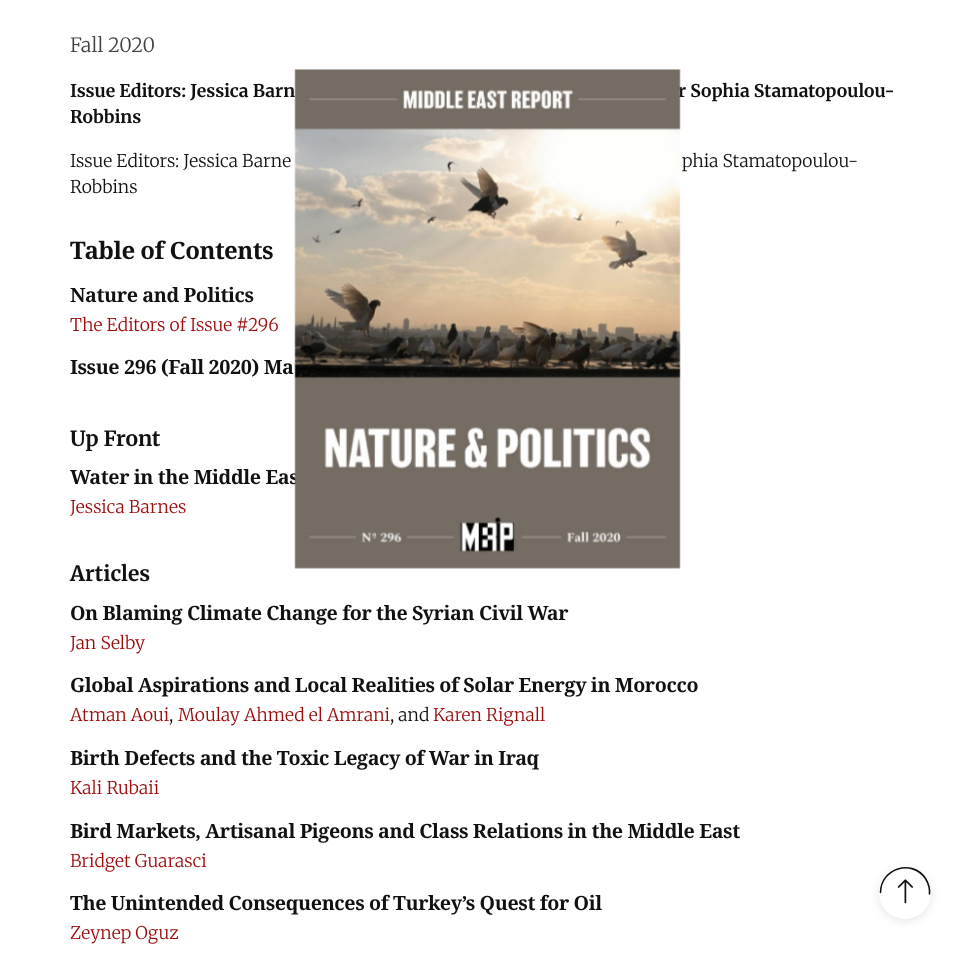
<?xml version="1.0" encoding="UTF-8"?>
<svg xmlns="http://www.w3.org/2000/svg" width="975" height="953">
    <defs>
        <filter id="blur1" x="-50%" y="-200%" width="200%" height="500%"><feGaussianBlur stdDeviation="5"/></filter>
    </defs>
    <rect width="100%" height="100%" fill="#FFFFFF"/>
    <text x="70" y="52" font-family="'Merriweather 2'" font-size="19.7" font-weight="300" fill="#414141">Fall 2020</text>
    <text x="70" y="97" font-family="Merriweather" font-size="17.5" font-weight="300" fill="#111111">Issue Editors: Jessica Barn</text>
    <text x="678" y="97" font-family="Merriweather" font-size="17.5" font-weight="300" fill="#111111">r Sophia Stamatopoulou-</text>
    <text x="70" y="123" font-family="Merriweather" font-size="17.5" font-weight="300" fill="#111111">Robbins</text>
    <text x="70" y="167" font-family="'Merriweather 2'" font-size="17.5" font-weight="300" fill="#111111">Issue Editors: Jessica Barne</text>
    <text x="682" y="167" font-family="'Merriweather 2'" font-size="17.5" font-weight="300" fill="#111111">phia Stamatopoulou-</text>
    <text x="70" y="193" font-family="'Merriweather 2'" font-size="17.5" font-weight="300" fill="#111111">Robbins</text>
    <text x="70" y="259" font-family="Noto Serif" font-size="24" font-weight="700" letter-spacing="-0.5" fill="#111111">Table of Contents</text>
    <text x="70" y="302" font-family="Noto Serif" font-size="19.7" font-weight="700" letter-spacing="-0.4" fill="#111111">Nature and Politics</text>
    <text x="70" y="331" font-family="'Merriweather 2'" font-size="17.5" font-weight="300" fill="#9D0C0C">The Editors of Issue #296</text>
    <text x="70" y="374" font-family="Noto Serif" font-size="19.7" font-weight="700" letter-spacing="-0.4" fill="#111111">Issue 296 (Fall 2020) Ma</text>
    <text x="70" y="446" font-family="Merriweather" font-size="21" font-weight="300" fill="#111111">Up Front</text>
    <text x="70" y="484" font-family="Noto Serif" font-size="19.7" font-weight="700" letter-spacing="-0.4" fill="#111111">Water in the Middle Eas</text>
    <text x="70" y="513" font-family="'Merriweather 2'" font-size="17.5" font-weight="300" fill="#9D0C0C">Jessica Barnes</text>
    <text x="70" y="581" font-family="Merriweather" font-size="21" font-weight="300" fill="#111111">Articles</text>
    <text x="70" y="620" font-family="Noto Serif" font-size="19.7" font-weight="700" letter-spacing="-0.4" fill="#111111">On Blaming Climate Change for the Syrian Civil War</text>
    <text x="70" y="649" font-family="'Merriweather 2'" font-size="17.5" font-weight="300" fill="#9D0C0C">Jan Selby</text>
    <text x="70" y="692" font-family="Noto Serif" font-size="19.7" font-weight="700" letter-spacing="-0.4" fill="#111111">Global Aspirations and Local Realities of Solar Energy in Morocco</text>
    <text x="70" y="721" font-family="'Merriweather 2'" font-size="17.5" font-weight="300" fill="#9D0C0C">Atman Aoui</text>
    <text x="169" y="721" font-family="'Merriweather 2'" font-size="17.5" font-weight="300" fill="#111111">,</text>
    <text x="178" y="721" font-family="'Merriweather 2'" font-size="17.5" font-weight="300" fill="#9D0C0C">Moulay Ahmed el Amrani</text>
    <text x="390" y="721" font-family="'Merriweather 2'" font-size="17.5" font-weight="300" fill="#111111">, and</text>
    <text x="433" y="721" font-family="'Merriweather 2'" font-size="17.5" font-weight="300" fill="#9D0C0C">Karen Rignall</text>
    <text x="70" y="765" font-family="Noto Serif" font-size="19.7" font-weight="700" letter-spacing="-0.4" fill="#111111">Birth Defects and the Toxic Legacy of War in Iraq</text>
    <text x="70" y="794" font-family="'Merriweather 2'" font-size="17.5" font-weight="300" fill="#9D0C0C">Kali Rubaii</text>
    <text x="70" y="838" font-family="Noto Serif" font-size="19.7" font-weight="700" letter-spacing="-0.4" fill="#111111">Bird Markets, Artisanal Pigeons and Class Relations in the Middle East</text>
    <text x="70" y="867" font-family="'Merriweather 2'" font-size="17.5" font-weight="300" fill="#9D0C0C">Bridget Guarasci</text>
    <text x="70" y="910" font-family="Noto Serif" font-size="19.7" font-weight="700" letter-spacing="-0.4" fill="#111111">The Unintended Consequences of Turkey’s Quest for Oil</text>
    <text x="70" y="939" font-family="'Merriweather 2'" font-size="17.5" font-weight="300" fill="#9D0C0C">Zeynep Oguz</text>
    <image x="294" y="69" width="387" height="500" href="img_01.png"/>
    <rect x="879" y="869" width="52" height="52" rx="26" fill="#000000" fill-opacity="0.1" filter="url(#blur1)"/>
    <rect x="879" y="866" width="52" height="53" rx="26" fill="#FFFFFF"/>
    <image x="897" y="879" width="16" height="25" href="img_02.png"/>
    <path d="M 880.5 892.5 C 880.5 868.5 912 858.5 925.5 878.5 C 928.5 883.5 930 889 929.5 894" fill="none" stroke="#111111" stroke-width="1.6" stroke-linecap="round"/>
</svg>
